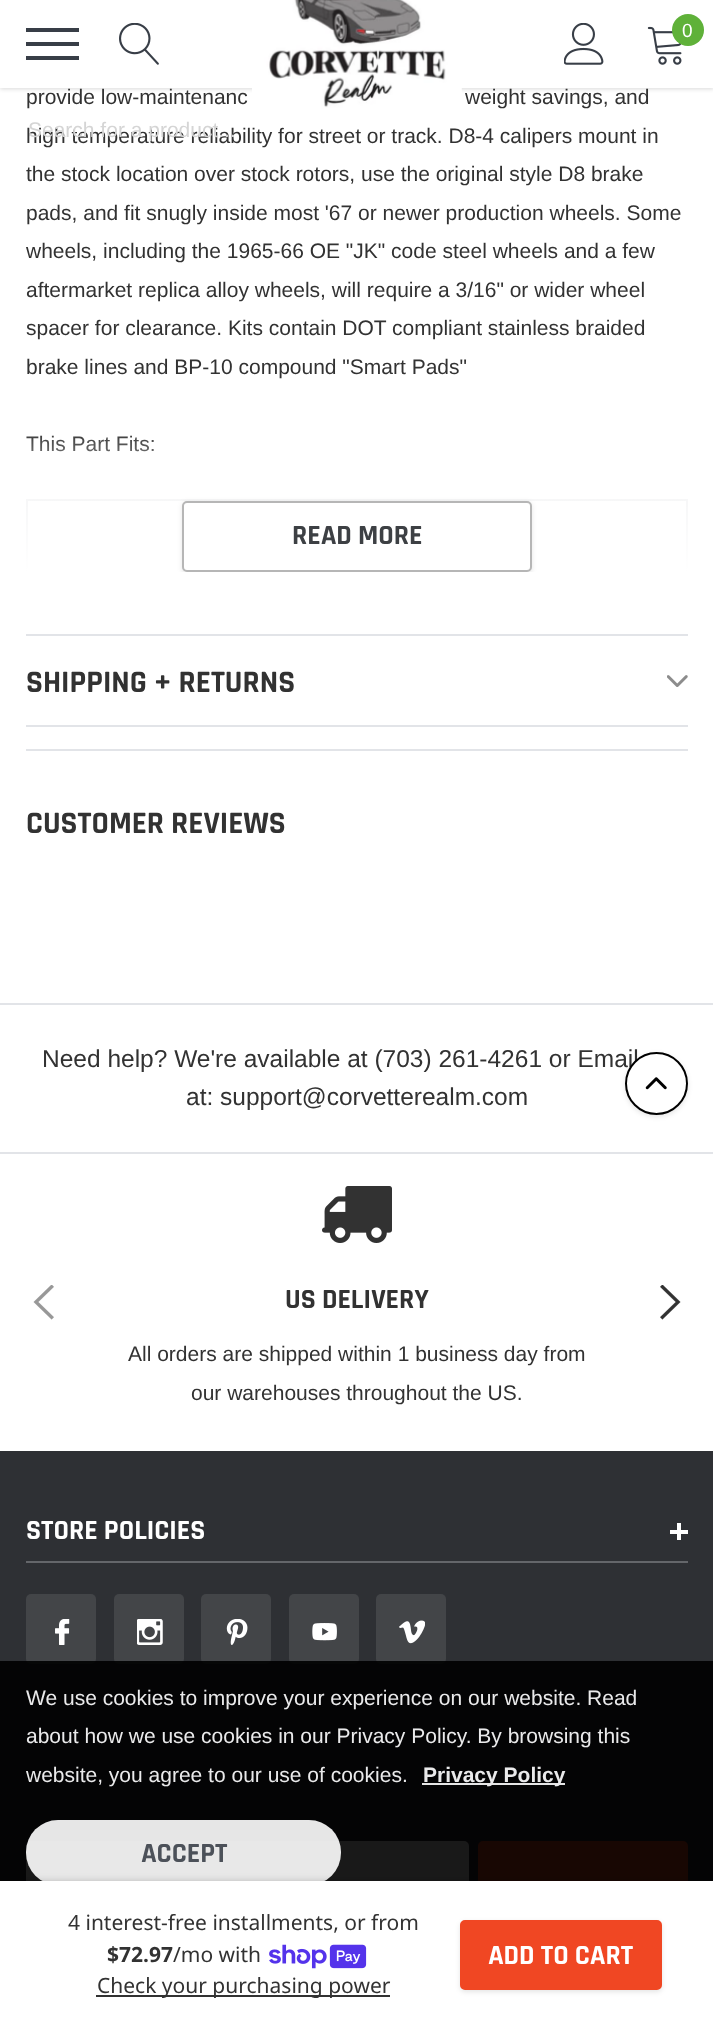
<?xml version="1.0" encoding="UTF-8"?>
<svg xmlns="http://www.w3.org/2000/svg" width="713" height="2028">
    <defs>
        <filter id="blur1" x="-50%" y="-200%" width="200%" height="500%"><feGaussianBlur stdDeviation="2"/></filter>
        <linearGradient id="g1" gradientUnits="userSpaceOnUse" x1="357" y1="430" x2="357" y2="572"><stop offset="0" stop-color="#FFFFFF" stop-opacity="0"/><stop offset="0.3" stop-color="#FFFFFF" stop-opacity="0.5"/><stop offset="1" stop-color="#FFFFFF"/></linearGradient>
        <clipPath id="clip1"><rect x="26" y="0" width="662" height="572"/></clipPath>
        <filter id="blur2" x="-50%" y="-200%" width="200%" height="500%"><feGaussianBlur stdDeviation="2.5"/></filter>
        <filter id="blur3" x="-50%" y="-200%" width="200%" height="500%"><feGaussianBlur stdDeviation="3.5"/></filter>
    </defs>
    <rect width="100%" height="100%" fill="#FFFFFF"/>
    <rect x="0" y="2" width="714" height="87" fill="#000000" fill-opacity="0.15" filter="url(#blur1)"/>
    <rect x="0" y="0" width="713" height="88" fill="#FFFFFF"/>
    <image x="252" y="0" width="210" height="109" href="img_01.png"/>
    <image x="564" y="23" width="40" height="42" href="img_02.png"/>
    <image x="647" y="26" width="35" height="39" href="img_03.png"/>
    <circle cx="688" cy="30" r="16" fill="#5FB139"/>
    <text x="682" y="37" font-family="Arimo" font-size="19" fill="#FFFFFF">0</text>
    <rect x="26" y="42" width="53" height="4" fill="#383E47"/>
    <rect x="26" y="28" width="53" height="4" fill="#383E47"/>
    <rect x="26" y="56" width="53" height="4" fill="#383E47"/>
    <image x="119" y="23" width="40" height="42" href="img_04.png"/>
    <text x="26" y="143" font-family="Arimo" font-size="21" fill="#323232">high temperature reliability for street or track. D8-4 calipers mount in</text>
    <text x="28" y="137" font-family="Arimo" font-size="21" fill="#D5D5D5">Search for a product...</text>
    <rect x="26" y="725" width="662" height="2" fill="#E2E4E8"/>
    <text x="26" y="104" font-family="Arimo" font-size="21" fill="#323232">provide low-maintenanc</text>
    <text x="465" y="104" font-family="Arimo" font-size="21" fill="#323232">weight savings, and</text>
    <text font-family="Arimo" font-size="21" fill="#323232">
        <tspan x="26" y="181">the stock location over stock rotors, use the original style D8 brake</tspan>
        <tspan x="26" y="220">pads, and fit snugly inside most '67 or newer production wheels. Some</tspan>
        <tspan x="26" y="258">wheels, including the 1965-66 OE "JK" code steel wheels and a few</tspan>
        <tspan x="26" y="297">aftermarket replica alloy wheels, will require a 3/16" or wider wheel</tspan>
        <tspan x="26" y="335">spacer for clearance. Kits contain DOT compliant stainless braided</tspan>
        <tspan x="26" y="374">brake lines and BP-10 compound "Smart Pads"</tspan>
    </text>
    <text x="26" y="451" font-family="Arimo" font-size="21" fill="#323232">This Part Fits:</text>
    <rect x="26" y="499" width="662" height="2" fill="#E8E9EB"/>
    <rect x="686" y="499" width="2" height="73" fill="#E8E9EB"/>
    <rect x="26" y="499" width="2" height="73" fill="#E8E9EB"/>
    <rect x="26" y="436" width="662" height="136" fill="url(#g1)"/>
    <g clip-path="url(#clip1)">
        <rect x="182" y="502" width="350" height="72" rx="5" fill="#000000" fill-opacity="0.1" filter="url(#blur2)"/>
    </g>
    <rect x="183" y="502" width="348" height="69" rx="4" fill="#FFFFFF" stroke="#B6B6B6" stroke-width="2"/>
    <text x="292" y="544" font-family="Rajdhani" font-size="28" font-weight="700" fill="#3D4044">READ MORE</text>
    <rect x="26" y="634" width="662" height="2" fill="#E2E4E8"/>
    <text x="26" y="692" font-family="Rajdhani" font-size="31.5" font-weight="700" fill="#323232">SHIPPING + RETURNS</text>
    <image x="667" y="675" width="21" height="12" href="img_05.png"/>
    <rect x="26" y="749" width="662" height="2" fill="#E2E4E8"/>
    <text x="26" y="833" font-family="Rajdhani" font-size="31.5" font-weight="700" fill="#323232">CUSTOMER REVIEWS</text>
    <rect x="0" y="1451" width="713" height="430" fill="#2E3034"/>
    <rect x="27" y="1842" width="441" height="72" rx="4" fill="#FFFFFF" stroke="#FFFFFF" stroke-width="2"/>
    <rect x="478" y="1843" width="210" height="73" rx="5" fill="#000000" fill-opacity="0.1" filter="url(#blur2)"/>
    <rect x="479" y="1842" width="208" height="72" rx="4" fill="#F04723" stroke="#F04723" stroke-width="2"/>
    <rect x="26" y="1594" width="70" height="70" rx="5" fill="#434548"/>
    <rect x="114" y="1594" width="70" height="70" rx="5" fill="#434548"/>
    <rect x="201" y="1594" width="70" height="70" rx="5" fill="#434548"/>
    <rect x="289" y="1594" width="70" height="70" rx="5" fill="#434548"/>
    <rect x="376" y="1594" width="70" height="70" rx="5" fill="#434548"/>
    <rect x="0" y="1661" width="713" height="220" fill="#000000" fill-opacity="0.9"/>
    <rect x="26" y="1820" width="315" height="65" rx="32" fill="#FFFFFF" fill-opacity="0.9"/>
    <rect x="0" y="1881" width="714" height="147" fill="#000000" fill-opacity="0.2" filter="url(#blur3)"/>
    <rect x="0" y="1881" width="713" height="147" fill="#FFFFFF"/>
    <text x="68" y="1930" font-family="Noto Sans" font-size="21" fill="#323232">4 interest-free installments, or from</text>
    <text x="107" y="1962" font-family="Noto Sans" font-size="21" font-weight="700" fill="#323232">$72.97</text>
    <text x="173" y="1962" font-family="Noto Sans" font-size="21" fill="#323232">/mo with</text>
    <image x="269" y="1944" width="98" height="25" href="img_06.png"/>
    <rect x="96" y="1995" width="294" height="2" fill="#323232"/>
    <text x="97" y="1993" font-family="Noto Sans" font-size="21" fill="#323232">Check your purchasing power</text>
    <rect x="460" y="1922" width="202" height="70" rx="5" fill="#000000" fill-opacity="0.1" filter="url(#blur2)"/>
    <rect x="461" y="1921" width="200" height="68" rx="4" fill="#F04723" stroke="#F04723" stroke-width="2"/>
    <text x="488" y="1964" font-family="Rajdhani" font-size="28" font-weight="700" fill="#FFFFFF">ADD TO CART</text>
    <rect x="0" y="1003" width="713" height="2" fill="#E2E4E8"/>
    <text x="42" y="1067" font-family="Arimo" font-size="24.5" fill="#323232">Need help? We're available at (703) 261-4261 or Email</text>
    <text x="186" y="1105" font-family="Arimo" font-size="24.5" fill="#323232">at: support@corvetterealm.com</text>
    <rect x="0" y="1152" width="713" height="2" fill="#E2E4E8"/>
    <image x="33" y="1285" width="21" height="35" href="img_07.png"/>
    <image x="322" y="1186" width="70" height="57" href="img_08.png"/>
    <text x="285" y="1308" font-family="Rajdhani" font-size="28" font-weight="700" fill="#323232">US DELIVERY</text>
    <text x="128" y="1361" font-family="Arimo" font-size="21" fill="#323232">All orders are shipped within 1 business day from</text>
    <text x="191" y="1400" font-family="Arimo" font-size="21" fill="#323232">our warehouses throughout the US.</text>
    <image x="660" y="1285" width="21" height="35" href="img_09.png"/>
    <rect x="625" y="1054" width="63" height="63" rx="31.5" fill="#000000" fill-opacity="0.1" filter="url(#blur2)"/>
    <circle cx="656.5" cy="1083.5" r="30.5" fill="#FFFFFF" stroke="#000000" stroke-width="2"/>
    <image x="645" y="1077" width="22" height="13" href="img_10.png"/>
    <rect x="26" y="1561" width="662" height="2" fill="#64666A"/>
    <text x="26" y="1539" font-family="Rajdhani" font-size="28" font-weight="700" fill="#FFFFFF">STORE POLICIES</text>
    <rect x="677" y="1523" width="4" height="17" fill="#FFFFFF"/>
    <rect x="670" y="1530" width="18" height="4" fill="#FFFFFF"/>
    <image x="55" y="1619" width="15" height="26" href="img_11.png"/>
    <image x="137" y="1619" width="26" height="26" href="img_12.png"/>
    <image x="226" y="1619" width="22" height="26" href="img_13.png"/>
    <image x="312" y="1623" width="25" height="18" href="img_14.png"/>
    <image x="399" y="1620" width="26" height="24" href="img_15.png"/>
    <text font-family="Arimo" font-size="21" fill="#EAEAEB">
        <tspan x="26" y="1705">We use cookies to improve your experience on our website. Read</tspan>
        <tspan x="26" y="1743">about how we use cookies in our Privacy Policy. By browsing this</tspan>
        <tspan x="26" y="1782">website, you agree to our use of cookies.</tspan>
    </text>
    <rect x="422" y="1783" width="143" height="2" fill="#FFFFFF" fill-opacity="0.9"/>
    <text x="423" y="1782" font-family="Arimo" font-size="21" font-weight="700" fill="#EAEAEB">Privacy Policy</text>
    <text x="141" y="1862" font-family="Rajdhani" font-size="28" font-weight="700" fill="#4C5159">ACCEPT</text>
</svg>
